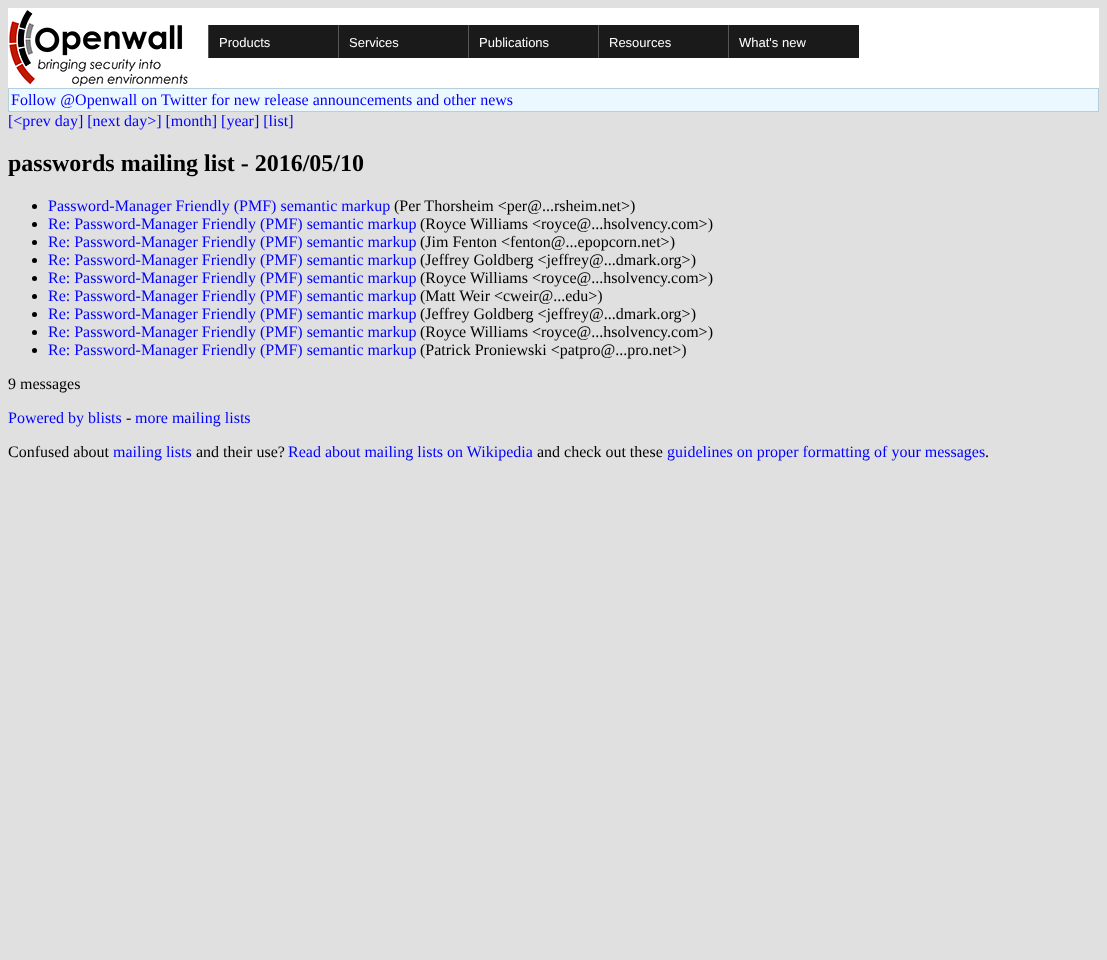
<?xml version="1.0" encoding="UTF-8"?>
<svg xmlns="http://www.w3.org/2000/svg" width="1107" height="960">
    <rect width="100%" height="100%" fill="#E0E0E0"/>
    <rect x="8" y="8" width="1091" height="80" fill="#FFFFFF"/>
    <image x="9" y="10" width="179" height="77" href="img_01.png"/>
    <rect x="209" y="25" width="129" height="33" fill="#1A1A1A"/>
    <rect x="208" y="25" width="1" height="33" fill="#555555"/>
    <text x="219" y="47" font-family="Liberation Sans" font-size="13" fill="#FFFFFF">Products</text>
    <rect x="339" y="25" width="129" height="33" fill="#1A1A1A"/>
    <rect x="338" y="25" width="1" height="33" fill="#555555"/>
    <text x="349" y="47" font-family="Liberation Sans" font-size="13" fill="#FFFFFF">Services</text>
    <rect x="469" y="25" width="129" height="33" fill="#1A1A1A"/>
    <rect x="468" y="25" width="1" height="33" fill="#555555"/>
    <text x="479" y="47" font-family="Liberation Sans" font-size="13" fill="#FFFFFF">Publications</text>
    <rect x="599" y="25" width="129" height="33" fill="#1A1A1A"/>
    <rect x="598" y="25" width="1" height="33" fill="#555555"/>
    <text x="609" y="47" font-family="Liberation Sans" font-size="13" fill="#FFFFFF">Resources</text>
    <rect x="729" y="25" width="130" height="33" fill="#1A1A1A"/>
    <rect x="728" y="25" width="1" height="33" fill="#555555"/>
    <text x="739" y="47" font-family="Liberation Sans" font-size="13" fill="#FFFFFF">What's new</text>
    <rect x="8" y="88" width="1091" height="24" fill="#B4D0DC"/>
    <rect x="9" y="89" width="1089" height="22" fill="#ECF8FF"/>
    <text x="11" y="105" font-family="Liberation Serif" font-size="16" fill="#0000FF">Follow @Openwall on Twitter for new release announcements and other news</text>
    <text x="8" y="126" font-family="Liberation Serif" font-size="16" fill="#0000FF">[&lt;prev day] [next day&gt;] [month] [year] [list]</text>
    <text x="8" y="171" font-family="Liberation Serif" font-size="24" font-weight="700" fill="#000000">passwords mailing list - 2016/05/10</text>
    <circle cx="34.5" cy="206.5" r="2.5" fill="#000000"/>
    <text x="48" y="211" font-family="Liberation Serif" font-size="16" fill="#0000FF">Password-Manager Friendly (PMF) semantic markup</text>
    <text x="394" y="211" font-family="Liberation Serif" font-size="16" fill="#000000">(Per Thorsheim &lt;per@...rsheim.net&gt;)</text>
    <circle cx="34.5" cy="224.5" r="2.5" fill="#000000"/>
    <text x="48" y="229" font-family="Liberation Serif" font-size="16" fill="#0000FF">Re: Password-Manager Friendly (PMF) semantic markup</text>
    <text x="420" y="229" font-family="Liberation Serif" font-size="16" fill="#000000">(Royce Williams &lt;royce@...hsolvency.com&gt;)</text>
    <circle cx="34.5" cy="242.5" r="2.5" fill="#000000"/>
    <text x="48" y="247" font-family="Liberation Serif" font-size="16" fill="#0000FF">Re: Password-Manager Friendly (PMF) semantic markup</text>
    <text x="420" y="247" font-family="Liberation Serif" font-size="16" fill="#000000">(Jim Fenton &lt;fenton@...epopcorn.net&gt;)</text>
    <circle cx="34.5" cy="260.5" r="2.5" fill="#000000"/>
    <text x="48" y="265" font-family="Liberation Serif" font-size="16" fill="#0000FF">Re: Password-Manager Friendly (PMF) semantic markup</text>
    <text x="420" y="265" font-family="Liberation Serif" font-size="16" fill="#000000">(Jeffrey Goldberg &lt;jeffrey@...dmark.org&gt;)</text>
    <circle cx="34.5" cy="278.5" r="2.5" fill="#000000"/>
    <text x="48" y="283" font-family="Liberation Serif" font-size="16" fill="#0000FF">Re: Password-Manager Friendly (PMF) semantic markup</text>
    <text x="420" y="283" font-family="Liberation Serif" font-size="16" fill="#000000">(Royce Williams &lt;royce@...hsolvency.com&gt;)</text>
    <circle cx="34.5" cy="296.5" r="2.5" fill="#000000"/>
    <text x="48" y="301" font-family="Liberation Serif" font-size="16" fill="#0000FF">Re: Password-Manager Friendly (PMF) semantic markup</text>
    <text x="420" y="301" font-family="Liberation Serif" font-size="16" fill="#000000">(Matt Weir &lt;cweir@...edu&gt;)</text>
    <circle cx="34.5" cy="314.5" r="2.5" fill="#000000"/>
    <text x="48" y="319" font-family="Liberation Serif" font-size="16" fill="#0000FF">Re: Password-Manager Friendly (PMF) semantic markup</text>
    <text x="420" y="319" font-family="Liberation Serif" font-size="16" fill="#000000">(Jeffrey Goldberg &lt;jeffrey@...dmark.org&gt;)</text>
    <circle cx="34.5" cy="332.5" r="2.5" fill="#000000"/>
    <text x="48" y="337" font-family="Liberation Serif" font-size="16" fill="#0000FF">Re: Password-Manager Friendly (PMF) semantic markup</text>
    <text x="420" y="337" font-family="Liberation Serif" font-size="16" fill="#000000">(Royce Williams &lt;royce@...hsolvency.com&gt;)</text>
    <circle cx="34.5" cy="350.5" r="2.5" fill="#000000"/>
    <text x="48" y="355" font-family="Liberation Serif" font-size="16" fill="#0000FF">Re: Password-Manager Friendly (PMF) semantic markup</text>
    <text x="420" y="355" font-family="Liberation Serif" font-size="16" fill="#000000">(Patrick Proniewski &lt;patpro@...pro.net&gt;)</text>
    <text x="8" y="389" font-family="Liberation Serif" font-size="16" fill="#000000">9 messages</text>
    <text x="8" y="423" font-family="Liberation Serif" font-size="16" fill="#0000FF">Powered by blists</text>
    <text x="126" y="423" font-family="Liberation Serif" font-size="16" fill="#000000">-</text>
    <text x="135" y="423" font-family="Liberation Serif" font-size="16" fill="#0000FF">more mailing lists</text>
    <text x="8" y="457" font-family="Liberation Serif" font-size="16" fill="#000000">Confused about</text>
    <text x="113" y="457" font-family="Liberation Serif" font-size="16" fill="#0000FF">mailing lists</text>
    <text x="196" y="457" font-family="Liberation Serif" font-size="16" fill="#000000">and their use?</text>
    <text x="288" y="457" font-family="Liberation Serif" font-size="16" fill="#0000FF">Read about mailing lists on Wikipedia</text>
    <text x="537" y="457" font-family="Liberation Serif" font-size="16" fill="#000000">and check out these</text>
    <text x="667" y="457" font-family="Liberation Serif" font-size="16" fill="#0000FF">guidelines on proper formatting of your messages</text>
    <text x="985" y="457" font-family="Liberation Serif" font-size="16" fill="#000000">.</text>
</svg>
